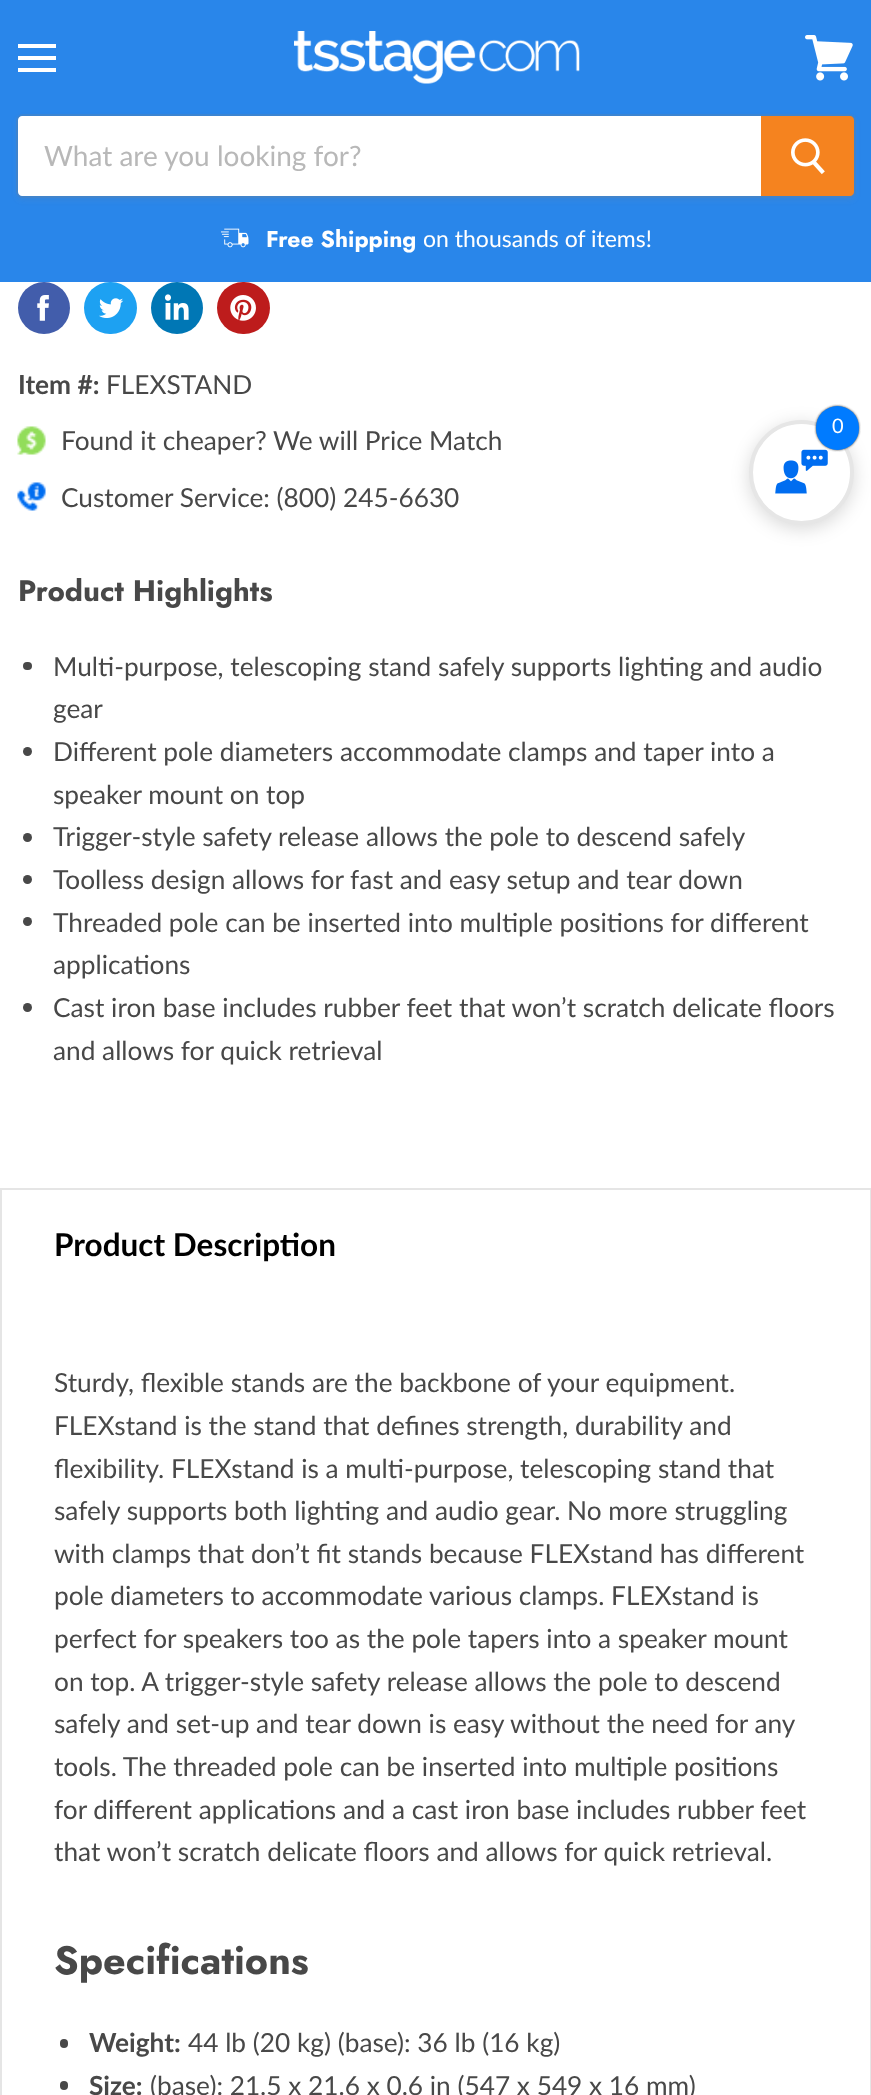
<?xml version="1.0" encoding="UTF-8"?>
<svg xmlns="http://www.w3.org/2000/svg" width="871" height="2095">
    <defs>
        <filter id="blur1" x="-50%" y="-200%" width="200%" height="500%"><feGaussianBlur stdDeviation="2.5"/></filter>
        <filter id="blur2" x="-50%" y="-200%" width="200%" height="500%"><feGaussianBlur stdDeviation="9"/></filter>
        <filter id="blur3" x="-50%" y="-200%" width="200%" height="500%"><feGaussianBlur stdDeviation="1"/></filter>
    </defs>
    <rect width="100%" height="100%" fill="#FFFFFF"/>
    <rect x="0" y="0" width="871" height="282" fill="#2986EA"/>
    <rect x="18" y="44" width="38" height="4" fill="#FFFFFF"/>
    <rect x="18" y="56" width="38" height="4" fill="#FFFFFF"/>
    <rect x="18" y="68" width="38" height="4" fill="#FFFFFF"/>
    <image x="805" y="35" width="48" height="46" href="img_01.png"/>
    <image x="294" y="31" width="286" height="53" href="img_02.png"/>
    <rect x="16" y="117" width="840" height="84" rx="7" fill="#7F7F7F" fill-opacity="0.11" filter="url(#blur1)"/>
    <rect x="17" y="115" width="838" height="82" rx="6" fill="none" stroke="#7F7F7F" stroke-opacity="0.2" stroke-width="2"/>
    <path d="M 22 116 H 761 V 196 H 22 C 20 196 18 194 18 192 V 120 C 18 118 20 116 22 116 Z" fill="#FFFFFF"/>
    <text x="44" y="166" font-family="Lato" font-size="28" fill="#B8B8B8">What are you looking for?</text>
    <path d="M 762 117 H 850 C 851.5 117 853 118.5 853 120 V 192 C 853 193.5 851.5 195 850 195 H 762 Z" fill="#F5831F" stroke="#F5831F" stroke-width="2"/>
    <image x="791" y="138" width="34" height="37" href="img_03.png"/>
    <image x="221" y="228" width="28" height="20" href="img_04.png"/>
    <text x="266" y="247" font-family="Jost" font-size="23" font-weight="700" fill="#FFFFFF">Free Shipping</text>
    <text x="423" y="247" font-family="Lato" font-size="23" fill="#FFFFFF">on thousands of items!</text>
    <circle cx="44" cy="308" r="26" fill="#425DAB"/>
    <image x="37" y="295" width="12" height="26" href="img_05.png"/>
    <rect x="84" y="282" width="53" height="52" rx="26" fill="#1DA1F2"/>
    <image x="99" y="298" width="25" height="20" href="img_06.png"/>
    <circle cx="177" cy="308" r="26" fill="#0077B5"/>
    <image x="164" y="294" width="25" height="26" href="img_07.png"/>
    <rect x="217" y="282" width="53" height="52" rx="26" fill="#BD1C1C"/>
    <image x="230" y="295" width="26" height="26" href="img_08.png"/>
    <text x="18" y="394" font-family="Lato" font-size="26.25" font-weight="700" fill="#484848">Item #:</text>
    <text x="106" y="394" font-family="Lato" font-size="26.25" fill="#484848">FLEXSTAND</text>
    <image x="17" y="426" width="29" height="29" href="img_09.png"/>
    <text x="61" y="450" font-family="Lato" font-size="26.25" fill="#484848">Found it cheaper? We will Price Match</text>
    <image x="17" y="482" width="29" height="29" href="img_10.png"/>
    <text x="61" y="507" font-family="Lato" font-size="26.25" fill="#484848">Customer Service: (800) 245-6630</text>
    <text x="18" y="601" font-family="Jost" font-size="29.5" font-weight="700" fill="#484848">Product Highlights</text>
    <rect x="23" y="662" width="9" height="8" rx="4" fill="#484848"/>
    <text font-family="Lato" font-size="26.25" fill="#484848">
        <tspan x="53" y="676">Multi-purpose, telescoping stand safely supports lighting and audio</tspan>
        <tspan x="53" y="718">gear</tspan>
    </text>
    <circle cx="27.5" cy="751.5" r="4.5" fill="#484848"/>
    <text font-family="Lato" font-size="26.25" fill="#484848">
        <tspan x="53" y="761">Different pole diameters accommodate clamps and taper into a</tspan>
        <tspan x="53" y="804">speaker mount on top</tspan>
    </text>
    <circle cx="27.5" cy="837.5" r="4.5" fill="#484848"/>
    <text x="53" y="846" font-family="Lato" font-size="26.25" fill="#484848">Trigger-style safety release allows the pole to descend safely</text>
    <circle cx="27.5" cy="879.5" r="4.5" fill="#484848"/>
    <text x="53" y="889" font-family="Lato" font-size="26.25" fill="#484848">Toolless design allows for fast and easy setup and tear down</text>
    <circle cx="27.5" cy="921.5" r="4.5" fill="#484848"/>
    <text font-family="Lato" font-size="26.25" fill="#484848">
        <tspan x="53" y="932">Threaded pole can be inserted into multiple positions for different</tspan>
        <tspan x="53" y="974">applications</tspan>
    </text>
    <circle cx="27.5" cy="1007.5" r="4.5" fill="#484848"/>
    <text font-family="Lato" font-size="26.25" fill="#484848">
        <tspan x="53" y="1017">Cast iron base includes rubber feet that won’t scratch delicate floors</tspan>
        <tspan x="53" y="1060">and allows for quick retrieval</tspan>
    </text>
    <rect x="1" y="1298" width="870" height="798" fill="none" stroke="#E5E5E5" stroke-width="2"/>
    <rect x="2" y="1297" width="868" height="2" fill="#FFFFFF"/>
    <rect x="0" y="1188" width="871" height="2" fill="#E5E5E5"/>
    <rect x="870" y="1188" width="1" height="111" fill="#E5E5E5"/>
    <rect x="0" y="1188" width="2" height="111" fill="#E5E5E5"/>
    <text x="54" y="1256" font-family="Lato" font-size="31.5" font-weight="700" fill="#000000">Product Description</text>
    <text font-family="Lato" font-size="26.25" fill="#484848">
        <tspan x="54" y="1392">Sturdy, flexible stands are the backbone of your equipment.</tspan>
        <tspan x="54" y="1435">FLEXstand is the stand that defines strength, durability and</tspan>
        <tspan x="54" y="1478">flexibility. FLEXstand is a multi-purpose, telescoping stand that</tspan>
        <tspan x="54" y="1520">safely supports both lighting and audio gear. No more struggling</tspan>
        <tspan x="54" y="1563">with clamps that don’t fit stands because FLEXstand has different</tspan>
        <tspan x="54" y="1605">pole diameters to accommodate various clamps. FLEXstand is</tspan>
        <tspan x="54" y="1648">perfect for speakers too as the pole tapers into a speaker mount</tspan>
        <tspan x="54" y="1691">on top. A trigger-style safety release allows the pole to descend</tspan>
        <tspan x="54" y="1733">safely and set-up and tear down is easy without the need for any</tspan>
        <tspan x="54" y="1776">tools. The threaded pole can be inserted into multiple positions</tspan>
        <tspan x="54" y="1819">for different applications and a cast iron base includes rubber feet</tspan>
        <tspan x="54" y="1861">that won’t scratch delicate floors and allows for quick retrieval.</tspan>
    </text>
    <text x="54" y="1974" font-family="Jost" font-size="39.5" font-weight="700" fill="#484848">Specifications</text>
    <rect x="60" y="2039" width="8" height="9" rx="4" fill="#484848"/>
    <text x="89" y="2052" font-family="Lato" font-size="26.25" font-weight="700" fill="#484848">Weight:</text>
    <text x="188" y="2052" font-family="Lato" font-size="26.25" fill="#484848">44 lb (20 kg) (base): 36 lb (16 kg)</text>
    <rect x="60" y="2081" width="8" height="9" rx="4" fill="#484848"/>
    <text x="89" y="2095" font-family="Lato" font-size="26.25" font-weight="700" fill="#484848">Size:</text>
    <text x="150" y="2095" font-family="Lato" font-size="26.25" fill="#484848">(base): 21.5 x 21.6 x 0.6 in (547 x 549 x 16 mm)</text>
    <rect x="749" y="424" width="105" height="105" rx="52.5" fill="#000000" fill-opacity="0.15" filter="url(#blur2)"/>
    <circle cx="801.5" cy="472.5" r="50.5" fill="#FFFFFF" stroke="#E6E6E6" stroke-width="4"/>
    <image x="775" y="449" width="53" height="45" href="img_11.png"/>
    <rect x="816" y="406" width="43" height="44" rx="21.5" fill="#333333" filter="url(#blur3)"/>
    <rect x="816" y="406" width="43" height="44" rx="21.5" fill="#007BFF"/>
    <text x="832" y="433" font-family="Lato" font-size="20" fill="#FFFFFF">0</text>
</svg>
